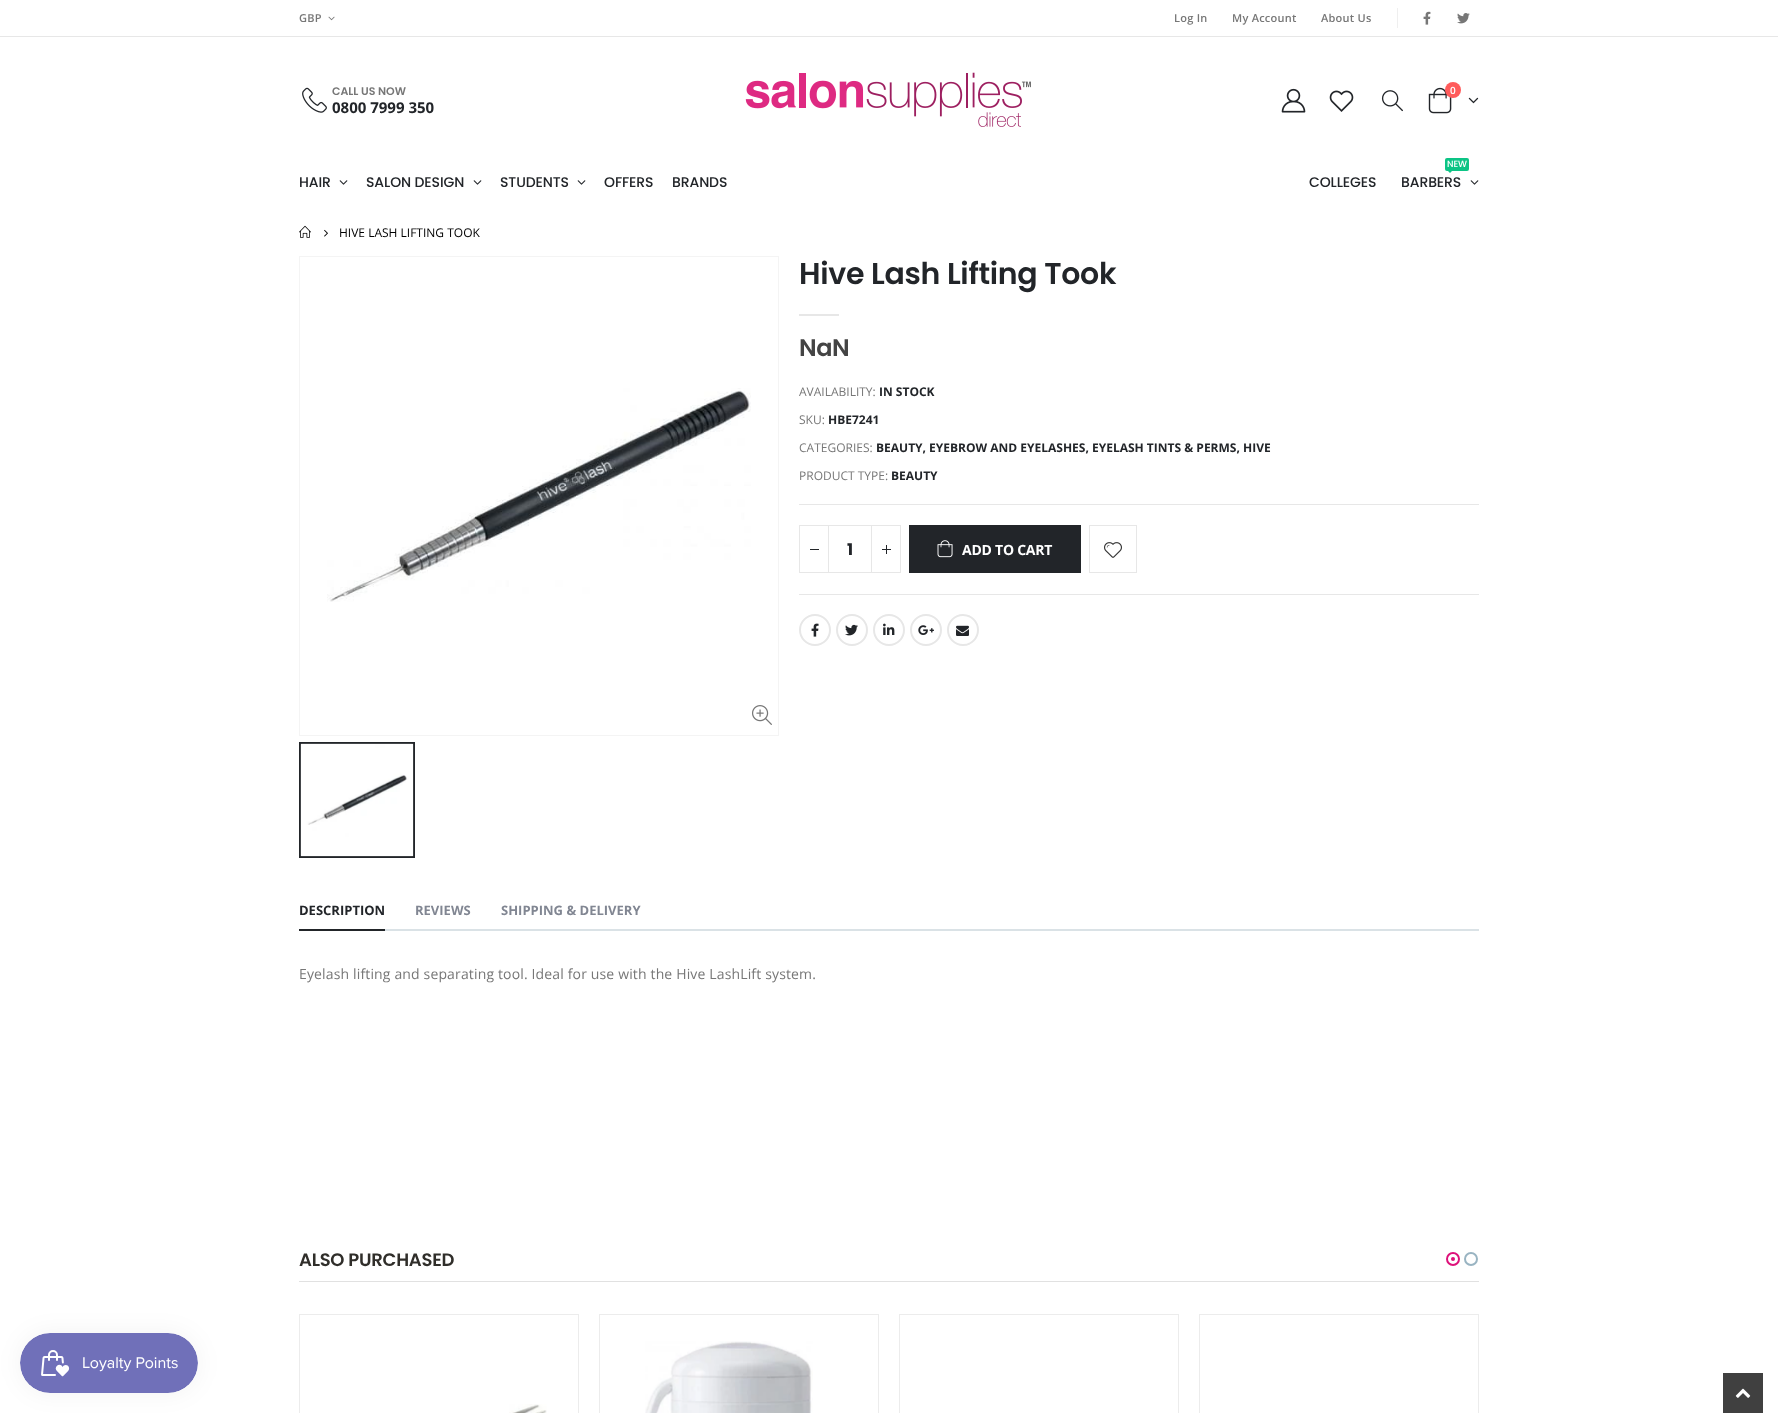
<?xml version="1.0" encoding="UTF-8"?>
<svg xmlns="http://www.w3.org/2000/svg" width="1778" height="1413">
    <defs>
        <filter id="blur1" x="-50%" y="-200%" width="200%" height="500%"><feGaussianBlur stdDeviation="12.5"/></filter>
    </defs>
    <rect width="100%" height="100%" fill="#FFFFFF"/>
    <rect x="0" y="36" width="1778" height="1" fill="#E7E7E7"/>
    <text x="299" y="22" font-family="Open Sans" font-size="11" font-weight="600" letter-spacing="0.25" fill="#777777">GBP</text>
    <image x="328" y="16" width="7" height="5" href="img_01.png"/>
    <text x="1174" y="22" font-family="Open Sans" font-size="11" font-weight="600" letter-spacing="0.25" fill="#777777">Log In</text>
    <text x="1232" y="22" font-family="Open Sans" font-size="11" font-weight="600" letter-spacing="0.25" fill="#777777">My Account</text>
    <text x="1321" y="22" font-family="Open Sans" font-size="11" font-weight="600" letter-spacing="0.25" fill="#777777">About Us</text>
    <rect x="1397" y="8" width="1" height="20" fill="#EFEFEF"/>
    <image x="1423" y="11" width="8" height="14" href="img_02.png"/>
    <image x="1457" y="13" width="13" height="11" href="img_03.png"/>
    <image x="302" y="87" width="25" height="26" href="img_04.png"/>
    <text x="332" y="95" font-family="Poppins" font-size="11" font-weight="600" fill="#777777">CALL US NOW</text>
    <text x="332" y="113" font-family="Open Sans" font-size="15" font-weight="700" fill="#222529">0800 7999 350</text>
    <image x="745" y="72" width="286" height="55" href="img_05.png"/>
    <image x="1281" y="88" width="25" height="25" href="img_06.png"/>
    <image x="1329" y="90" width="25" height="22" href="img_07.png"/>
    <image x="1381" y="90" width="22" height="22" href="img_08.png"/>
    <image x="1428" y="87" width="24" height="27" href="img_09.png"/>
    <circle cx="1453" cy="90" r="8" fill="#FF5B5B"/>
    <text x="1450" y="94" font-family="Open Sans" font-size="10" font-weight="600" fill="#FFFFFF">0</text>
    <image x="1468" y="97" width="11" height="7" href="img_10.png"/>
    <text x="299" y="187" font-family="Poppins" font-size="14" font-weight="500" letter-spacing="-0.1" fill="#222529">HAIR</text>
    <image x="339" y="180" width="9" height="5" href="img_11.png"/>
    <text x="366" y="187" font-family="Poppins" font-size="14" font-weight="500" letter-spacing="-0.1" fill="#222529">SALON DESIGN</text>
    <image x="473" y="180" width="9" height="5" href="img_11.png"/>
    <text x="500" y="187" font-family="Poppins" font-size="14" font-weight="500" letter-spacing="-0.1" fill="#222529">STUDENTS</text>
    <image x="577" y="180" width="9" height="5" href="img_11.png"/>
    <text x="604" y="187" font-family="Poppins" font-size="14" font-weight="500" letter-spacing="-0.1" fill="#222529">OFFERS</text>
    <text x="672" y="187" font-family="Poppins" font-size="14" font-weight="500" letter-spacing="-0.1" fill="#222529">BRANDS</text>
    <text x="1309" y="187" font-family="Poppins" font-size="14" font-weight="500" letter-spacing="-0.1" fill="#222529">COLLEGES</text>
    <rect x="1445" y="158" width="24" height="13" rx="2" fill="#0CC485"/>
    <text x="1447" y="167" font-family="Poppins" font-size="9" font-weight="500" letter-spacing="-0.1" fill="#FFFFFF">NEW</text>
    <path d="M 1448 171 H 1452 L 1450 173 Z" fill="#0CC485"/>
    <text x="1401" y="187" font-family="Poppins" font-size="14" font-weight="500" letter-spacing="-0.1" fill="#222529">BARBERS</text>
    <image x="1470" y="180" width="9" height="5" href="img_11.png"/>
    <image x="299" y="225" width="12" height="13" href="img_12.png"/>
    <image x="324" y="229" width="4" height="8" href="img_13.png"/>
    <text x="339" y="237" font-family="Open Sans" font-size="12" fill="#000000">HIVE LASH LIFTING TOOK</text>
    <rect x="299.5" y="256.5" width="479" height="479" fill="none" stroke="#F4F4F4"/>
    <image x="327" y="388" width="424" height="214" href="img_14.png"/>
    <image x="752" y="705" width="20" height="20" href="img_15.png"/>
    <rect x="300" y="743" width="114" height="114" fill="none" stroke="#222529" stroke-width="2"/>
    <image x="300" y="743" width="114" height="114" href="img_16.png"/>
    <text x="799" y="284" font-family="Poppins" font-size="30" font-weight="600" letter-spacing="-0.3" fill="#222529">Hive Lash Lifting Took</text>
    <rect x="799" y="314" width="40" height="2" fill="#E7E7E7"/>
    <text x="799" y="356" font-family="Poppins" font-size="24" font-weight="600" letter-spacing="-0.5" fill="#444444">NaN</text>
    <text x="799" y="396" font-family="Open Sans" font-size="12" fill="#777777">AVAILABILITY:</text>
    <text x="879" y="396" font-family="Open Sans" font-size="12" font-weight="700" fill="#222529">IN STOCK</text>
    <text x="799" y="424" font-family="Open Sans" font-size="12" fill="#777777">SKU:</text>
    <text x="828" y="424" font-family="Open Sans" font-size="12" font-weight="700" fill="#222529">HBE7241</text>
    <text x="799" y="452" font-family="Open Sans" font-size="12" fill="#777777">CATEGORIES:</text>
    <text x="876" y="452" font-family="Open Sans" font-size="12" font-weight="700" fill="#222529">BEAUTY, EYEBROW AND EYELASHES, EYELASH TINTS &amp; PERMS, HIVE</text>
    <text x="799" y="480" font-family="Open Sans" font-size="12" fill="#777777">PRODUCT TYPE:</text>
    <text x="891" y="480" font-family="Open Sans" font-size="12" font-weight="700" fill="#222529">BEAUTY</text>
    <rect x="799" y="504" width="680" height="1" fill="#E7E7E7"/>
    <rect x="799" y="594" width="680" height="1" fill="#E7E7E7"/>
    <rect x="828.5" y="525.5" width="43" height="47" fill="none" stroke="#E7E7E7"/>
    <rect x="799.5" y="525.5" width="29" height="47" fill="none" stroke="#E7E7E7"/>
    <rect x="810" y="549" width="9" height="1" fill="#222529"/>
    <rect x="871.5" y="525.5" width="29" height="47" fill="none" stroke="#E7E7E7"/>
    <rect x="882" y="549" width="9" height="1" fill="#222529"/>
    <rect x="886" y="545" width="1" height="9" fill="#222529"/>
    <text x="847" y="555" font-family="Poppins" font-size="16" font-weight="700" fill="#222529">1</text>
    <rect x="909" y="525" width="172" height="48" fill="#222529"/>
    <image x="937" y="540" width="16" height="18" href="img_17.png"/>
    <text x="962" y="555" font-family="Open Sans" font-size="14" font-weight="700" letter-spacing="-0.25" fill="#FFFFFF">ADD TO CART</text>
    <rect x="1089.5" y="525.5" width="47" height="47" fill="none" stroke="#E7E7E7"/>
    <image x="1104" y="542" width="18" height="16" href="img_18.png"/>
    <circle cx="815" cy="630" r="15" fill="none" stroke="#E7E7E7" stroke-width="2"/>
    <image x="811" y="623" width="8" height="14" href="img_19.png"/>
    <circle cx="852" cy="630" r="15" fill="none" stroke="#E7E7E7" stroke-width="2"/>
    <image x="845" y="624" width="13" height="12" href="img_20.png"/>
    <circle cx="889" cy="630" r="15" fill="none" stroke="#E7E7E7" stroke-width="2"/>
    <image x="883" y="623" width="12" height="12" href="img_21.png"/>
    <circle cx="926" cy="630" r="15" fill="none" stroke="#E7E7E7" stroke-width="2"/>
    <image x="918" y="625" width="16" height="10" href="img_22.png"/>
    <circle cx="963" cy="630" r="15" fill="none" stroke="#E7E7E7" stroke-width="2"/>
    <image x="956" y="625" width="13" height="11" href="img_23.png"/>
    <rect x="385" y="929" width="1094" height="2" fill="#DAE2E6"/>
    <rect x="299" y="929" width="86" height="2" fill="#222529"/>
    <text x="299" y="915" font-family="Open Sans" font-size="13" font-weight="700" fill="#222529">DESCRIPTION</text>
    <text x="415" y="915" font-family="Open Sans" font-size="13" font-weight="700" fill="#818692">REVIEWS</text>
    <text x="501" y="915" font-family="Open Sans" font-size="13" font-weight="700" fill="#818692">SHIPPING &amp; DELIVERY</text>
    <text x="299" y="979" font-family="Open Sans" font-size="14" letter-spacing="0.15" fill="#777777">Eyelash lifting and separating tool. Ideal for use with the Hive LashLift system.</text>
    <circle cx="1453" cy="1259" r="6" fill="none" stroke="#DD117A" stroke-width="2"/>
    <circle cx="1453" cy="1259" r="2" fill="#DD117A"/>
    <circle cx="1471" cy="1259" r="6" fill="none" stroke="#99B4C2" stroke-width="2"/>
    <rect x="299.5" y="1314.5" width="279" height="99" fill="none" stroke="#ECECEC"/>
    <image x="509" y="1404" width="38" height="9" href="img_24.png"/>
    <rect x="599.5" y="1314.5" width="279" height="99" fill="none" stroke="#ECECEC"/>
    <image x="645" y="1341" width="168" height="72" href="img_25.png"/>
    <rect x="899.5" y="1314.5" width="279" height="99" fill="none" stroke="#ECECEC"/>
    <rect x="1199.5" y="1314.5" width="279" height="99" fill="none" stroke="#ECECEC"/>
    <rect x="299" y="1281" width="1180" height="1" fill="#E1E1E1"/>
    <text x="299" y="1266" font-family="Poppins" font-size="18" font-weight="600" letter-spacing="-0.25" fill="#302E2A">ALSO PURCHASED</text>
    <rect x="1723" y="1373" width="40" height="40" fill="#404040"/>
    <image x="1735" y="1388" width="16" height="10" href="img_26.png"/>
    <rect x="20" y="1333" width="178" height="60" rx="30" fill="#000000" fill-opacity="0.05" filter="url(#blur1)"/>
    <image x="20" y="1333" width="178" height="60" href="img_27.png"/>
</svg>
